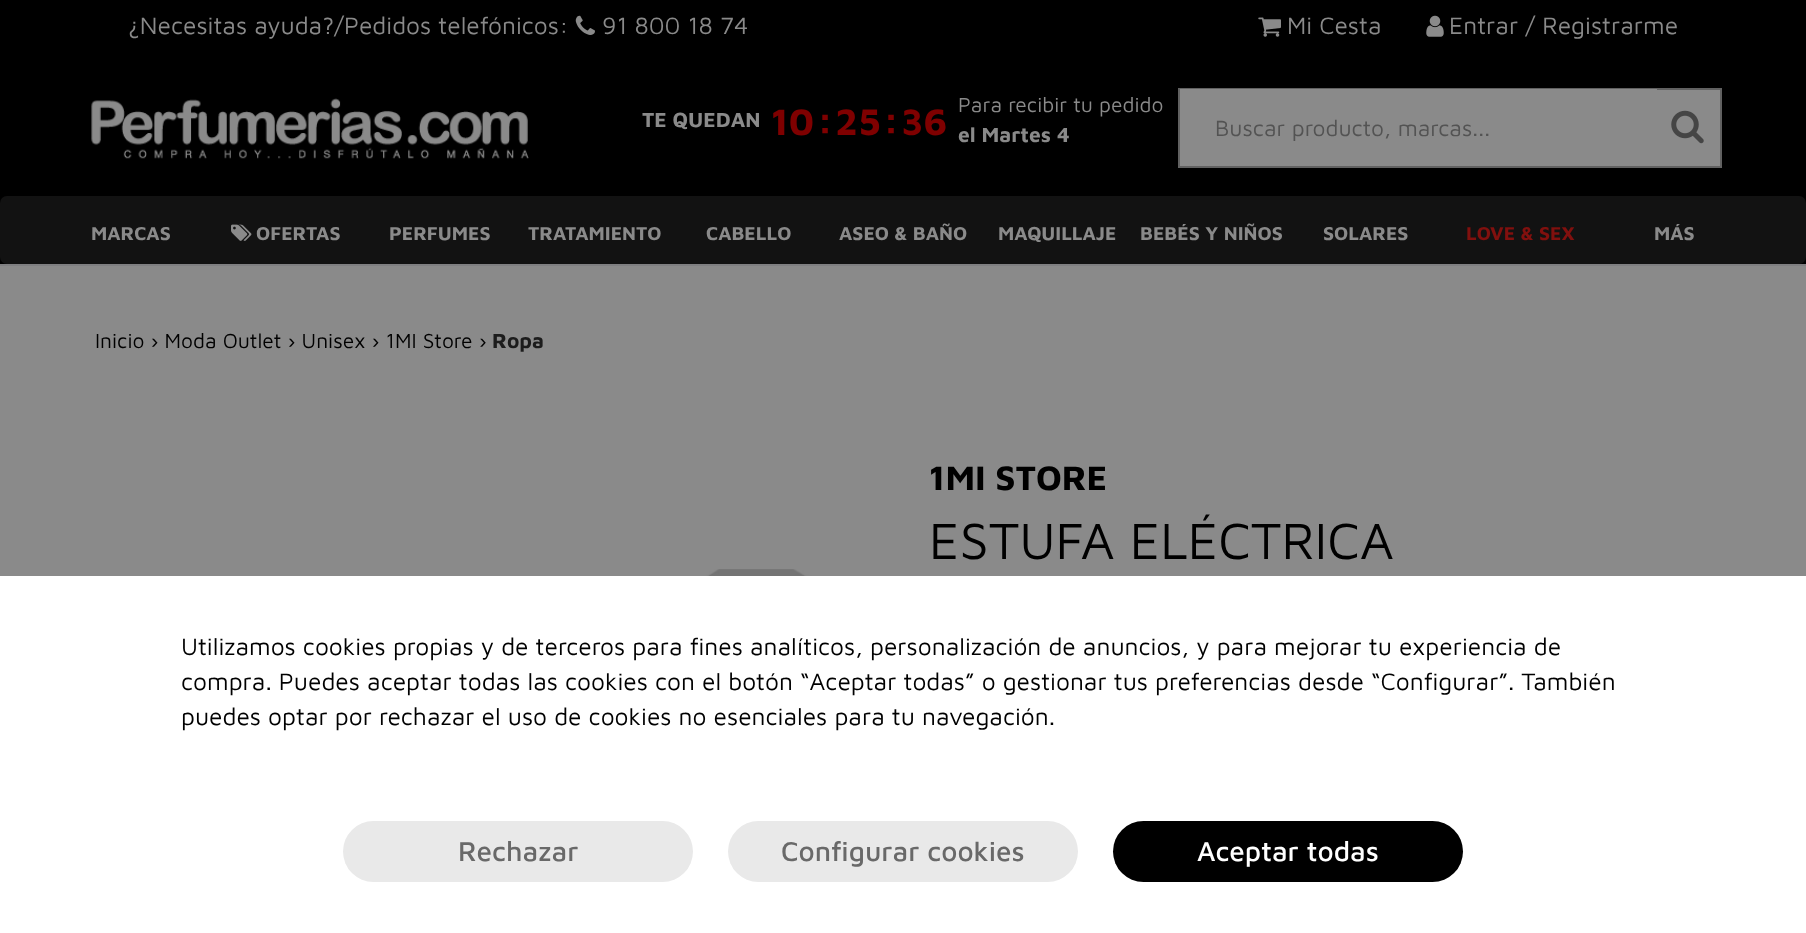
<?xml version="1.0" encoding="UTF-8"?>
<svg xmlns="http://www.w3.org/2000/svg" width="1806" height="933">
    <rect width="100%" height="100%" fill="#8A8A8A"/>
    <rect x="0" y="0" width="1806" height="264" fill="#000000"/>
    <rect x="0" y="264" width="1806" height="2" fill="#7F7F81"/>
    <text x="128" y="34" font-family="Maven Pro" font-size="24.5" fill="#8A8A8A">¿Necesitas ayuda?/Pedidos telefónicos:</text>
    <image x="575" y="15" width="20" height="20" href="img_01.png"/>
    <text x="602" y="34" font-family="Maven Pro" font-size="24.5" fill="#8A8A8A">91 800 18 74</text>
    <image x="1258" y="17" width="23" height="20" href="img_02.png"/>
    <text x="1287" y="34" font-family="Maven Pro" font-size="24.5" fill="#8A8A8A">Mi Cesta</text>
    <image x="1426" y="15" width="18" height="22" href="img_03.png"/>
    <text x="1449" y="34" font-family="Maven Pro" font-size="24.5" fill="#8A8A8A">Entrar / Registrarme</text>
    <image x="91" y="98" width="438" height="61" href="img_04.png"/>
    <text x="642" y="127" font-family="Maven Pro" font-size="21" font-weight="700" fill="#8A8A8A">TE QUEDAN</text>
    <text x="771" y="135" font-family="Maven Pro" font-size="38" font-weight="700" fill="#7F0000">10</text>
    <text x="816" y="135" font-family="Maven Pro" font-size="44" font-weight="700" fill="#7F0000">:</text>
    <text x="835" y="135" font-family="Maven Pro" font-size="38" font-weight="700" fill="#7F0000">25</text>
    <text x="882" y="135" font-family="Maven Pro" font-size="44" font-weight="700" fill="#7F0000">:</text>
    <text x="901" y="135" font-family="Maven Pro" font-size="38" font-weight="700" fill="#7F0000">36</text>
    <text x="958" y="112" font-family="Maven Pro" font-size="21" fill="#8A8A8A">Para recibir tu pedido</text>
    <text x="958" y="142" font-family="Maven Pro" font-size="21" font-weight="700" fill="#8A8A8A">el Martes 4</text>
    <rect x="1657" y="90" width="63" height="76" fill="#8A8A8A"/>
    <rect x="1179" y="89" width="542" height="78" fill="none" stroke="#616161" stroke-width="2"/>
    <rect x="1180" y="89" width="477" height="77" fill="#8A8A8A"/>
    <text x="1215" y="136" font-family="Maven Pro" font-size="22.75" fill="#535353">Buscar producto, marcas...</text>
    <image x="1671" y="110" width="33" height="34" href="img_05.png"/>
    <rect x="0" y="196" width="1806" height="68" rx="7" fill="#121212"/>
    <text x="91" y="240" font-family="Maven Pro" font-size="19.25" font-weight="700" fill="#8A8A8A">MARCAS</text>
    <image x="231" y="224" width="21" height="17" href="img_06.png"/>
    <text x="256" y="240" font-family="Maven Pro" font-size="19.25" font-weight="700" fill="#8A8A8A">OFERTAS</text>
    <text x="389" y="240" font-family="Maven Pro" font-size="19.25" font-weight="700" fill="#8A8A8A">PERFUMES</text>
    <text x="528" y="240" font-family="Maven Pro" font-size="19.25" font-weight="700" fill="#8A8A8A">TRATAMIENTO</text>
    <text x="706" y="240" font-family="Maven Pro" font-size="19.25" font-weight="700" fill="#8A8A8A">CABELLO</text>
    <text x="839" y="240" font-family="Maven Pro" font-size="19.25" font-weight="700" fill="#8A8A8A">ASEO &amp; BAÑO</text>
    <text x="998" y="240" font-family="Maven Pro" font-size="19.25" font-weight="700" fill="#8A8A8A">MAQUILLAJE</text>
    <text x="1140" y="240" font-family="Maven Pro" font-size="19.25" font-weight="700" fill="#8A8A8A">BEBÉS Y NIÑOS</text>
    <text x="1323" y="240" font-family="Maven Pro" font-size="19.25" font-weight="700" fill="#8A8A8A">SOLARES</text>
    <text x="1466" y="240" font-family="Maven Pro" font-size="19.25" font-weight="700" fill="#81100E">LOVE &amp; SEX</text>
    <text x="1654" y="240" font-family="Maven Pro" font-size="19.25" font-weight="700" fill="#8A8A8A">MÁS</text>
    <text x="95" y="348" font-family="Maven Pro" font-size="21" fill="#000000">Inicio › Moda Outlet › Unisex › 1MI Store ›</text>
    <text x="492" y="348" font-family="Maven Pro" font-size="21" font-weight="700" fill="#1C1C1C">Ropa</text>
    <text x="929" y="490" font-family="Maven Pro" font-size="35" font-weight="700" fill="#000000">1MI STORE</text>
    <text x="929" y="559" font-family="Maven Pro" font-size="52.5" fill="#000000">ESTUFA ELÉCTRICA</text>
    <image x="135" y="569" width="760" height="7" href="img_07.png"/>
    <rect x="0" y="576" width="1806" height="357" fill="#FFFFFF"/>
    <text font-family="Maven Pro" font-size="24.5" fill="#000000">
        <tspan x="181" y="655">Utilizamos cookies propias y de terceros para fines analíticos, personalización de anuncios, y para mejorar tu experiencia de</tspan>
        <tspan x="181" y="690">compra. Puedes aceptar todas las cookies con el botón “Aceptar todas” o gestionar tus preferencias desde “Configurar”. También</tspan>
        <tspan x="181" y="725">puedes optar por rechazar el uso de cookies no esenciales para tu navegación.</tspan>
    </text>
    <rect x="343" y="821" width="350" height="61" rx="30.5" fill="#E9E9E9"/>
    <text x="458" y="861" font-family="Maven Pro" font-size="28" font-weight="500" fill="#696969">Rechazar</text>
    <rect x="728" y="821" width="350" height="61" rx="30.5" fill="#E9E9E9"/>
    <text x="781" y="861" font-family="Maven Pro" font-size="28" font-weight="500" fill="#696969">Configurar cookies</text>
    <rect x="1113" y="821" width="350" height="61" rx="30.5" fill="#000000"/>
    <text x="1197" y="861" font-family="Maven Pro" font-size="28" font-weight="500" fill="#FFFFFF">Aceptar todas</text>
</svg>
